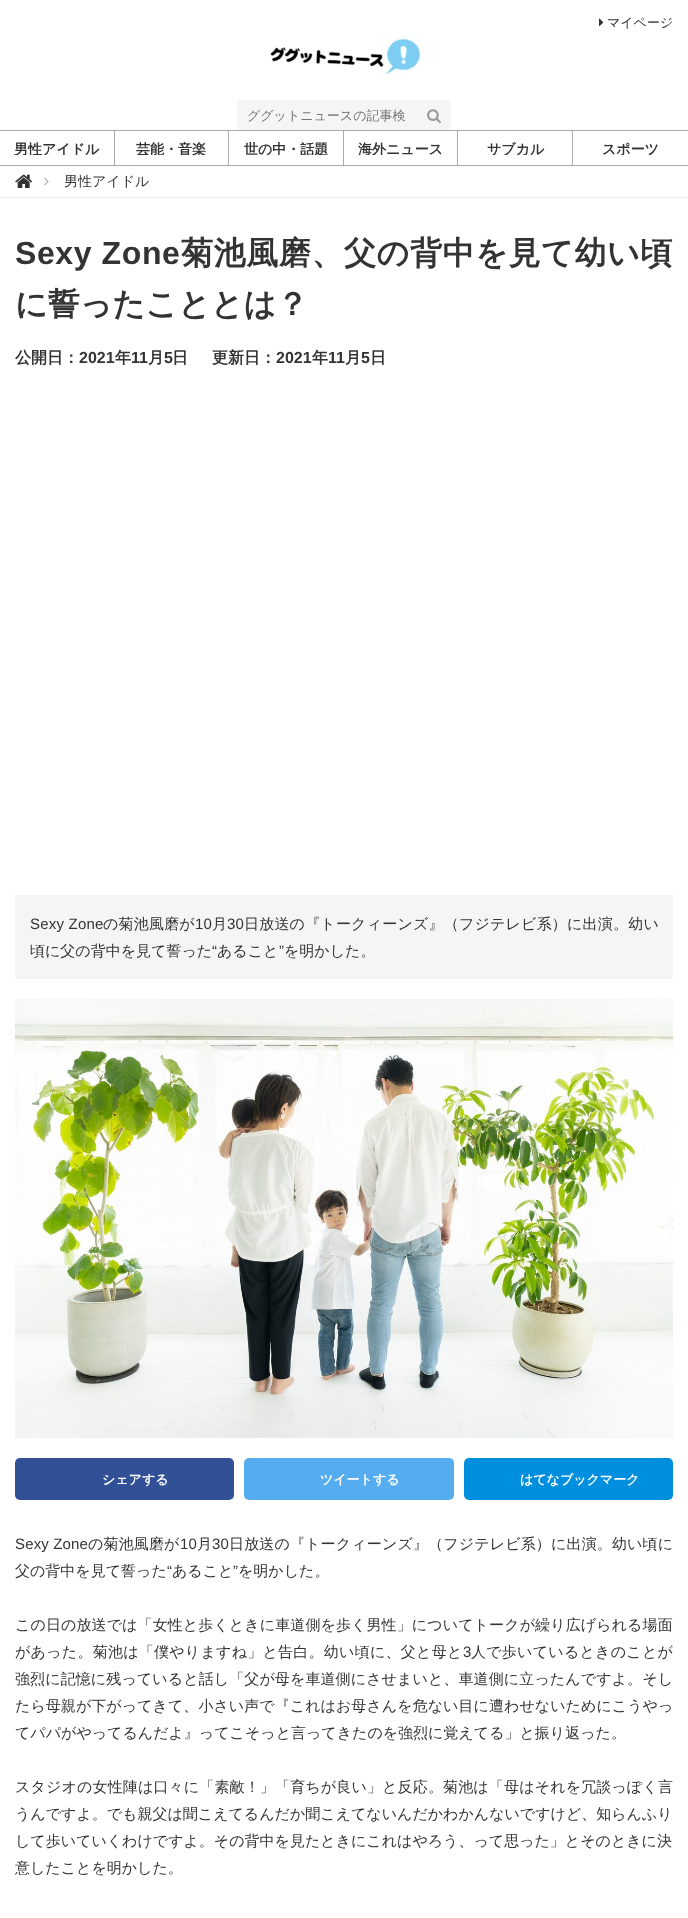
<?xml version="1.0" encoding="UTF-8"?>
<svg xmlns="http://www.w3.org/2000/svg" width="688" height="1918">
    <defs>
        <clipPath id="clip1"><rect x="10" y="141" width="94" height="14"/></clipPath>
        <clipPath id="clip2"><rect x="125" y="141" width="93" height="14"/></clipPath>
        <clipPath id="clip3"><rect x="239" y="141" width="94" height="14"/></clipPath>
        <clipPath id="clip4"><rect x="354" y="141" width="93" height="14"/></clipPath>
        <clipPath id="clip5"><rect x="468" y="141" width="94" height="14"/></clipPath>
        <clipPath id="clip6"><rect x="583" y="141" width="95" height="14"/></clipPath>
    </defs>
    <rect width="100%" height="100%" fill="#FFFFFF"/>
    <image x="599" y="18" width="5" height="8" href="img_01.png"/>
    <text x="607" y="27" font-family="WenQuanYi Zen Hei" font-size="13" font-weight="500" fill="#333333">マイページ</text>
    <image x="270" y="38" width="151" height="37" href="img_02.png"/>
    <path d="M 240 100 H 417 V 130 H 240 C 238.5 130 237 128.5 237 127 V 103 C 237 101.5 238.5 100 240 100 Z" fill="#F5F5F5"/>
    <text x="247" y="120" font-family="WenQuanYi Zen Hei" font-size="13" font-weight="500" fill="#757575">ググットニュースの記事検</text>
    <path d="M 417 100 H 448 C 449.5 100 451 101.5 451 103 V 127 C 451 128.5 449.5 130 448 130 H 417 Z" fill="#F5F5F5"/>
    <image x="427" y="109" width="14" height="15" href="img_03.png"/>
    <rect x="0" y="130" width="688" height="1" fill="#AAAAAA"/>
    <rect x="0" y="165" width="688" height="1" fill="#AAAAAA"/>
    <rect x="114" y="131" width="1" height="34" fill="#AAAAAA"/>
    <g clip-path="url(#clip1)">
        <text x="14" y="154" font-family="WenQuanYi Zen Hei" font-size="14" font-weight="700" fill="#333333">男性アイドル</text>
    </g>
    <rect x="228" y="131" width="1" height="34" fill="#AAAAAA"/>
    <g clip-path="url(#clip2)">
        <text x="136" y="154" font-family="WenQuanYi Zen Hei" font-size="14" font-weight="700" fill="#333333">芸能・音楽</text>
    </g>
    <rect x="343" y="131" width="1" height="34" fill="#AAAAAA"/>
    <g clip-path="url(#clip3)">
        <text x="244" y="154" font-family="WenQuanYi Zen Hei" font-size="14" font-weight="700" fill="#333333">世の中・話題</text>
    </g>
    <rect x="457" y="131" width="1" height="34" fill="#AAAAAA"/>
    <g clip-path="url(#clip4)">
        <text x="358" y="154" font-family="WenQuanYi Zen Hei" font-size="14" font-weight="700" fill="#333333">海外ニュース</text>
    </g>
    <rect x="572" y="131" width="1" height="34" fill="#AAAAAA"/>
    <g clip-path="url(#clip5)">
        <text x="487" y="154" font-family="WenQuanYi Zen Hei" font-size="14" font-weight="700" fill="#333333">サブカル</text>
    </g>
    <g clip-path="url(#clip6)">
        <text x="602" y="154" font-family="WenQuanYi Zen Hei" font-size="14" font-weight="700" fill="#333333">スポーツ</text>
    </g>
    <rect x="0" y="197" width="688" height="1" fill="#EEEEEE"/>
    <image x="15" y="174" width="17" height="14" href="img_04.png"/>
    <image x="44" y="177" width="5" height="9" href="img_05.png"/>
    <text x="64" y="186" font-family="WenQuanYi Zen Hei" font-size="14" font-weight="500" fill="#333333">男性アイドル</text>
    <text x="15" y="264" font-family="Liberation Sans" font-size="32" font-weight="700" letter-spacing="0.6" fill="#333333">Sexy Zone</text>
    <text x="181" y="264" font-family="WenQuanYi Zen Hei" font-size="32" font-weight="700" letter-spacing="0.6" fill="#333333">菊池風磨、父の背中を見て幼い頃</text>
    <text x="15" y="315" font-family="WenQuanYi Zen Hei" font-size="32" font-weight="700" fill="#333333">に誓ったこととは？</text>
    <text x="15" y="363" font-family="WenQuanYi Zen Hei" font-size="16" font-weight="700" fill="#333333">公開日：</text>
    <text x="79" y="363" font-family="Liberation Sans" font-size="16" font-weight="700" fill="#333333">2021</text>
    <text x="115" y="363" font-family="WenQuanYi Zen Hei" font-size="16" font-weight="700" fill="#333333">年</text>
    <text x="131" y="363" font-family="Liberation Sans" font-size="16" font-weight="700" fill="#333333">11</text>
    <text x="148" y="363" font-family="WenQuanYi Zen Hei" font-size="16" font-weight="700" fill="#333333">月</text>
    <text x="164" y="363" font-family="Liberation Sans" font-size="16" font-weight="700" fill="#333333">5</text>
    <text x="172" y="363" font-family="WenQuanYi Zen Hei" font-size="16" font-weight="700" fill="#333333">日</text>
    <text x="212" y="363" font-family="WenQuanYi Zen Hei" font-size="16" font-weight="700" fill="#333333">更新日：</text>
    <text x="276" y="363" font-family="Liberation Sans" font-size="16" font-weight="700" fill="#333333">2021</text>
    <text x="312" y="363" font-family="WenQuanYi Zen Hei" font-size="16" font-weight="700" fill="#333333">年</text>
    <text x="328" y="363" font-family="Liberation Sans" font-size="16" font-weight="700" fill="#333333">11</text>
    <text x="345" y="363" font-family="WenQuanYi Zen Hei" font-size="16" font-weight="700" fill="#333333">月</text>
    <text x="361" y="363" font-family="Liberation Sans" font-size="16" font-weight="700" fill="#333333">5</text>
    <text x="370" y="363" font-family="WenQuanYi Zen Hei" font-size="16" font-weight="700" fill="#333333">日</text>
    <rect x="15" y="895" width="658" height="84" fill="#F5F5F5"/>
    <text x="30" y="929" font-family="Liberation Sans" font-size="15" letter-spacing="0.2" fill="#333333">Sexy Zone</text>
    <text x="103" y="929" font-family="WenQuanYi Zen Hei" font-size="15" font-weight="500" letter-spacing="0.2" fill="#333333">の菊池風磨が</text>
    <text x="195" y="929" font-family="Liberation Sans" font-size="15" letter-spacing="0.2" fill="#333333">10</text>
    <text x="212" y="929" font-family="WenQuanYi Zen Hei" font-size="15" font-weight="500" letter-spacing="0.2" fill="#333333">月</text>
    <text x="227" y="929" font-family="Liberation Sans" font-size="15" letter-spacing="0.2" fill="#333333">30</text>
    <text x="244" y="929" font-family="WenQuanYi Zen Hei" font-size="15" font-weight="500" letter-spacing="0.2" fill="#333333">日放送の『トークィーンズ』（フジテレビ系）に出演。幼い</text>
    <text x="30" y="956" font-family="WenQuanYi Zen Hei" font-size="15" font-weight="500" fill="#333333">頃に父の背中を見て誓った</text>
    <text x="212" y="956" font-family="Liberation Sans" font-size="15" fill="#333333">“</text>
    <text x="217" y="956" font-family="WenQuanYi Zen Hei" font-size="15" font-weight="500" fill="#333333">あること</text>
    <text x="279" y="956" font-family="Liberation Sans" font-size="15" fill="#333333">”</text>
    <text x="284" y="956" font-family="WenQuanYi Zen Hei" font-size="15" font-weight="500" fill="#333333">を明かした。</text>
    <image x="15" y="999" width="658" height="439" href="img_06.png"/>
    <rect x="15" y="1458" width="219" height="42" rx="5" fill="#315096"/>
    <text x="102" y="1484" font-family="WenQuanYi Zen Hei" font-size="13" font-weight="700" fill="#FFFFFF">シェアする</text>
    <rect x="244" y="1458" width="210" height="42" rx="5" fill="#55ACEE"/>
    <text x="320" y="1484" font-family="WenQuanYi Zen Hei" font-size="13" font-weight="700" fill="#FFFFFF">ツイートする</text>
    <rect x="464" y="1458" width="209" height="42" rx="5" fill="#008FDE"/>
    <text x="520" y="1484" font-family="WenQuanYi Zen Hei" font-size="13" font-weight="700" fill="#FFFFFF">はてなブックマーク</text>
    <text x="15" y="1549" font-family="Liberation Sans" font-size="15" letter-spacing="0.15" fill="#333333">Sexy Zone</text>
    <text x="88" y="1549" font-family="WenQuanYi Zen Hei" font-size="15" font-weight="500" letter-spacing="0.15" fill="#333333">の菊池風磨が</text>
    <text x="180" y="1549" font-family="Liberation Sans" font-size="15" letter-spacing="0.15" fill="#333333">10</text>
    <text x="197" y="1549" font-family="WenQuanYi Zen Hei" font-size="15" font-weight="500" letter-spacing="0.15" fill="#333333">月</text>
    <text x="212" y="1549" font-family="Liberation Sans" font-size="15" letter-spacing="0.15" fill="#333333">30</text>
    <text x="229" y="1549" font-family="WenQuanYi Zen Hei" font-size="15" font-weight="500" letter-spacing="0.15" fill="#333333">日放送の『トークィーンズ』（フジテレビ系）に出演。幼い頃に</text>
    <text x="15" y="1576" font-family="WenQuanYi Zen Hei" font-size="15" font-weight="500" fill="#333333">父の背中を見て誓った</text>
    <text x="167" y="1576" font-family="Liberation Sans" font-size="15" fill="#333333">“</text>
    <text x="172" y="1576" font-family="WenQuanYi Zen Hei" font-size="15" font-weight="500" fill="#333333">あること</text>
    <text x="233" y="1576" font-family="Liberation Sans" font-size="15" fill="#333333">”</text>
    <text x="238" y="1576" font-family="WenQuanYi Zen Hei" font-size="15" font-weight="500" fill="#333333">を明かした。</text>
    <text x="15" y="1630" font-family="WenQuanYi Zen Hei" font-size="15" font-weight="500" letter-spacing="0.1" fill="#333333">この日の放送では「女性と歩くときに車道側を歩く男性」についてトークが繰り広げられる場面</text>
    <text x="15" y="1657" font-family="WenQuanYi Zen Hei" font-size="15" font-weight="500" letter-spacing="0.25" fill="#333333">があった。菊池は「僕やりますね」と告白。幼い頃に、父と母と</text>
    <text x="463" y="1657" font-family="Liberation Sans" font-size="15" letter-spacing="0.25" fill="#333333">3</text>
    <text x="471" y="1657" font-family="WenQuanYi Zen Hei" font-size="15" font-weight="500" letter-spacing="0.25" fill="#333333">人で歩いているときのことが</text>
    <text x="15" y="1684" font-family="WenQuanYi Zen Hei" font-size="15" font-weight="500" letter-spacing="0.1" fill="#333333">強烈に記憶に残っていると話し「父が母を車道側にさせまいと、車道側に立ったんですよ。そし</text>
    <text x="15" y="1711" font-family="WenQuanYi Zen Hei" font-size="15" font-weight="500" letter-spacing="0.05" fill="#333333">たら母親が下がってきて、小さい声で『これはお母さんを危ない目に遭わせないためにこうやっ</text>
    <text x="15" y="1738" font-family="WenQuanYi Zen Hei" font-size="15" font-weight="500" fill="#333333">てパパがやってるんだよ』ってこそっと言ってきたのを強烈に覚えてる」と振り返った。</text>
    <text x="15" y="1792" font-family="WenQuanYi Zen Hei" font-size="15" font-weight="500" letter-spacing="0.15" fill="#333333">スタジオの女性陣は口々に「素敵！」「育ちが良い」と反応。菊池は「母はそれを冗談っぽく言</text>
    <text font-family="WenQuanYi Zen Hei" font-size="15" font-weight="500" fill="#333333">
        <tspan x="15" y="1819">うんですよ。でも親父は聞こえてるんだか聞こえてないんだかわかんないですけど、知らんふり</tspan>
        <tspan x="15" y="1846">して歩いていくわけですよ。その背中を見たときにこれはやろう、って思った」とそのときに決</tspan>
        <tspan x="15" y="1873">意したことを明かした。</tspan>
    </text>
</svg>
